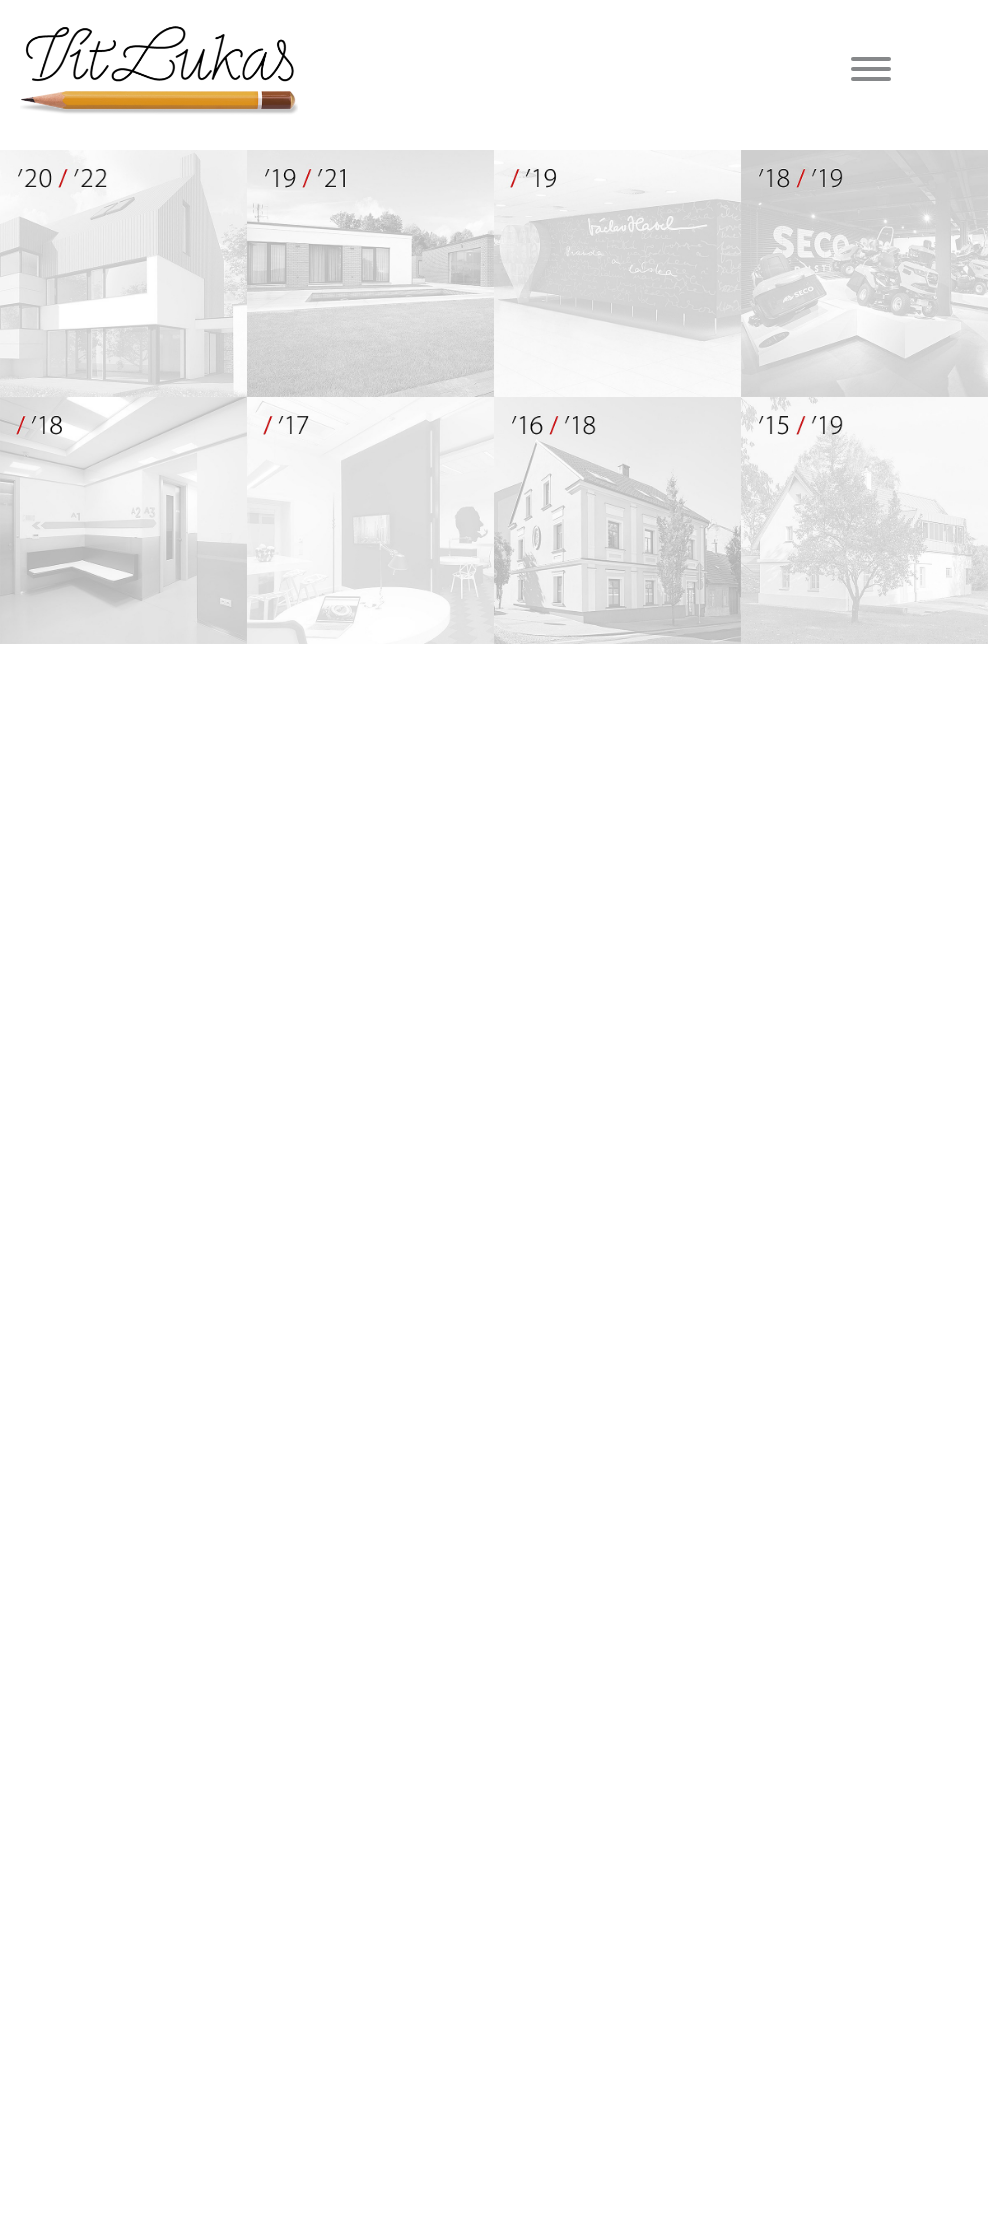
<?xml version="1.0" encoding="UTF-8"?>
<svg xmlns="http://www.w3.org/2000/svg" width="988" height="2236">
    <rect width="100%" height="100%" fill="#FFFFFF"/>
    <image x="20" y="26" width="278" height="89" href="img_01.png"/>
    <rect x="851" y="67" width="40" height="4" rx="2" fill="#86888A"/>
    <rect x="851" y="57" width="40" height="4" rx="2" fill="#86888A"/>
    <rect x="851" y="77" width="40" height="4" rx="2" fill="#86888A"/>
    <image x="0" y="150" width="247" height="247" href="img_02.png"/>
    <image x="247" y="150" width="247" height="247" href="img_03.png"/>
    <image x="494" y="150" width="247" height="247" href="img_04.png"/>
    <image x="741" y="150" width="247" height="247" href="img_05.png"/>
    <image x="0" y="397" width="247" height="247" href="img_06.png"/>
    <image x="247" y="397" width="247" height="247" href="img_07.png"/>
    <image x="494" y="397" width="247" height="247" href="img_08.png"/>
    <image x="741" y="397" width="247" height="247" href="img_09.png"/>
</svg>
